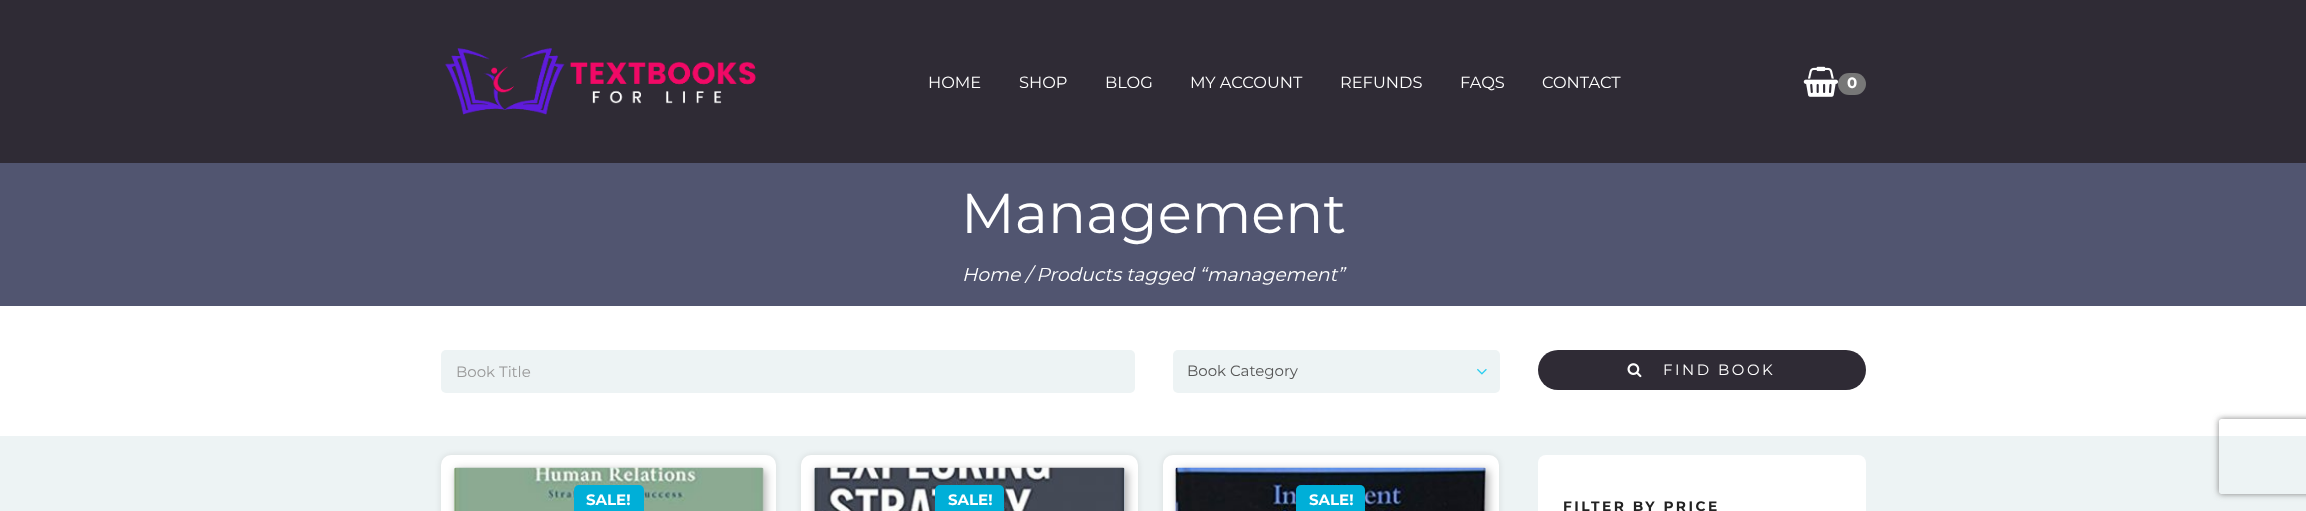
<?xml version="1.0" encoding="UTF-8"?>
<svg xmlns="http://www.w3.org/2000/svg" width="2306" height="511">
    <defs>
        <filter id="blur1" x="-50%" y="-200%" width="200%" height="500%"><feGaussianBlur stdDeviation="3"/></filter>
        <filter id="blur2" x="-50%" y="-200%" width="200%" height="500%"><feGaussianBlur stdDeviation="4.5"/></filter>
        <clipPath id="clip1"><path d="M 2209 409 H 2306 V 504 H 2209 Z M 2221.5 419 H 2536.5 C 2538 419 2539 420 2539 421.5 V 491.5 C 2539 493 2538 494 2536.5 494 H 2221.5 C 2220 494 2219 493 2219 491.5 V 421.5 C 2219 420 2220 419 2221.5 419 Z" clip-rule="evenodd"/></clipPath>
    </defs>
    <rect width="100%" height="100%" fill="#EDF3F4"/>
    <rect x="0" y="0" width="2306" height="163" fill="#2F2B35"/>
    <image x="445" y="48" width="311" height="67" href="img_01.png"/>
    <text x="928" y="88" font-family="Montserrat" font-size="16.25" fill="#FFFFFF">HOME</text>
    <text x="1019" y="88" font-family="Montserrat" font-size="16.25" fill="#FFFFFF">SHOP</text>
    <text x="1105" y="88" font-family="Montserrat" font-size="16.25" fill="#FFFFFF">BLOG</text>
    <text x="1190" y="88" font-family="Montserrat" font-size="16.25" fill="#FFFFFF">MY ACCOUNT</text>
    <text x="1340" y="88" font-family="Montserrat" font-size="16.25" fill="#FFFFFF">REFUNDS</text>
    <text x="1460" y="88" font-family="Montserrat" font-size="16.25" fill="#FFFFFF">FAQS</text>
    <text x="1542" y="88" font-family="Montserrat" font-size="16.25" fill="#FFFFFF">CONTACT</text>
    <image x="1803" y="66" width="35" height="31" href="img_02.png"/>
    <rect x="1838" y="73" width="28" height="22" rx="11" fill="#777777"/>
    <text x="1847" y="88" font-family="Montserrat" font-size="15" font-weight="700" fill="#FFFFFF">0</text>
    <rect x="0" y="163" width="2306" height="143" fill="#515570"/>
    <text x="961" y="233" font-family="Montserrat" font-size="56.25" fill="#FFFFFF">Management</text>
    <text x="962" y="281" font-family="Montserrat" font-size="18.75" font-style="italic" fill="#FFFFFF">Home / Products tagged “management”</text>
    <rect x="0" y="306" width="2306" height="130" fill="#FFFFFF"/>
    <rect x="441" y="350" width="694" height="43" rx="5" fill="#EDF3F4"/>
    <text x="456" y="377" font-family="Montserrat" font-size="15" fill="#999999">Book Title</text>
    <rect x="1173" y="350" width="327" height="43" rx="5" fill="#EDF3F4"/>
    <text x="1187" y="376" font-family="Montserrat" font-size="15" fill="#555555">Book Category</text>
    <image x="1477" y="368" width="10" height="7" href="img_03.png"/>
    <rect x="1538" y="350" width="328" height="40" rx="20" fill="#2F2B35"/>
    <image x="1627" y="363" width="15" height="15" href="img_04.png"/>
    <text x="1663" y="375" font-family="Montserrat" font-size="15" letter-spacing="2.5" fill="#FFFFFF">FIND BOOK</text>
    <rect x="441" y="455" width="335" height="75" rx="10" fill="#000000" fill-opacity="0.1" filter="url(#blur1)"/>
    <rect x="441" y="455" width="335" height="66" rx="10" fill="#FFFFFF"/>
    <rect x="456" y="470" width="310" height="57" rx="2.5" fill="#000000" fill-opacity="0.3" filter="url(#blur2)"/>
    <image x="453" y="467" width="311" height="44" href="img_05.png"/>
    <rect x="574" y="485" width="70" height="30" rx="5" fill="#00AFD8"/>
    <text x="586" y="505" font-family="Montserrat" font-size="15" font-weight="700" fill="#FFFFFF">SALE!</text>
    <rect x="801" y="455" width="337" height="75" rx="10" fill="#000000" fill-opacity="0.1" filter="url(#blur1)"/>
    <rect x="801" y="455" width="337" height="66" rx="10" fill="#FFFFFF"/>
    <rect x="816" y="470" width="312" height="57" rx="2.5" fill="#000000" fill-opacity="0.3" filter="url(#blur2)"/>
    <image x="814" y="467" width="311" height="44" href="img_06.png"/>
    <rect x="935" y="485" width="69" height="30" rx="5" fill="#00AFD8"/>
    <text x="948" y="505" font-family="Montserrat" font-size="15" font-weight="700" fill="#FFFFFF">SALE!</text>
    <rect x="1163" y="455" width="336" height="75" rx="10" fill="#000000" fill-opacity="0.1" filter="url(#blur1)"/>
    <rect x="1163" y="455" width="336" height="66" rx="10" fill="#FFFFFF"/>
    <rect x="1178" y="470" width="311" height="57" rx="2.5" fill="#000000" fill-opacity="0.3" filter="url(#blur2)"/>
    <image x="1175" y="467" width="311" height="44" href="img_07.png"/>
    <rect x="1296" y="485" width="69" height="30" rx="5" fill="#00AFD8"/>
    <text x="1309" y="505" font-family="Montserrat" font-size="15" font-weight="700" fill="#FFFFFF">SALE!</text>
    <rect x="1538" y="455" width="328" height="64" rx="8" fill="#FFFFFF"/>
    <text x="1563" y="511" font-family="Montserrat" font-size="13.75" font-weight="700" letter-spacing="2.5" fill="#222222">FILTER BY PRICE</text>
    <g clip-path="url(#clip1)">
        <rect x="2219" y="419" width="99" height="75" rx="2.5" fill="#808080" filter="url(#blur1)"/>
    </g>
</svg>
